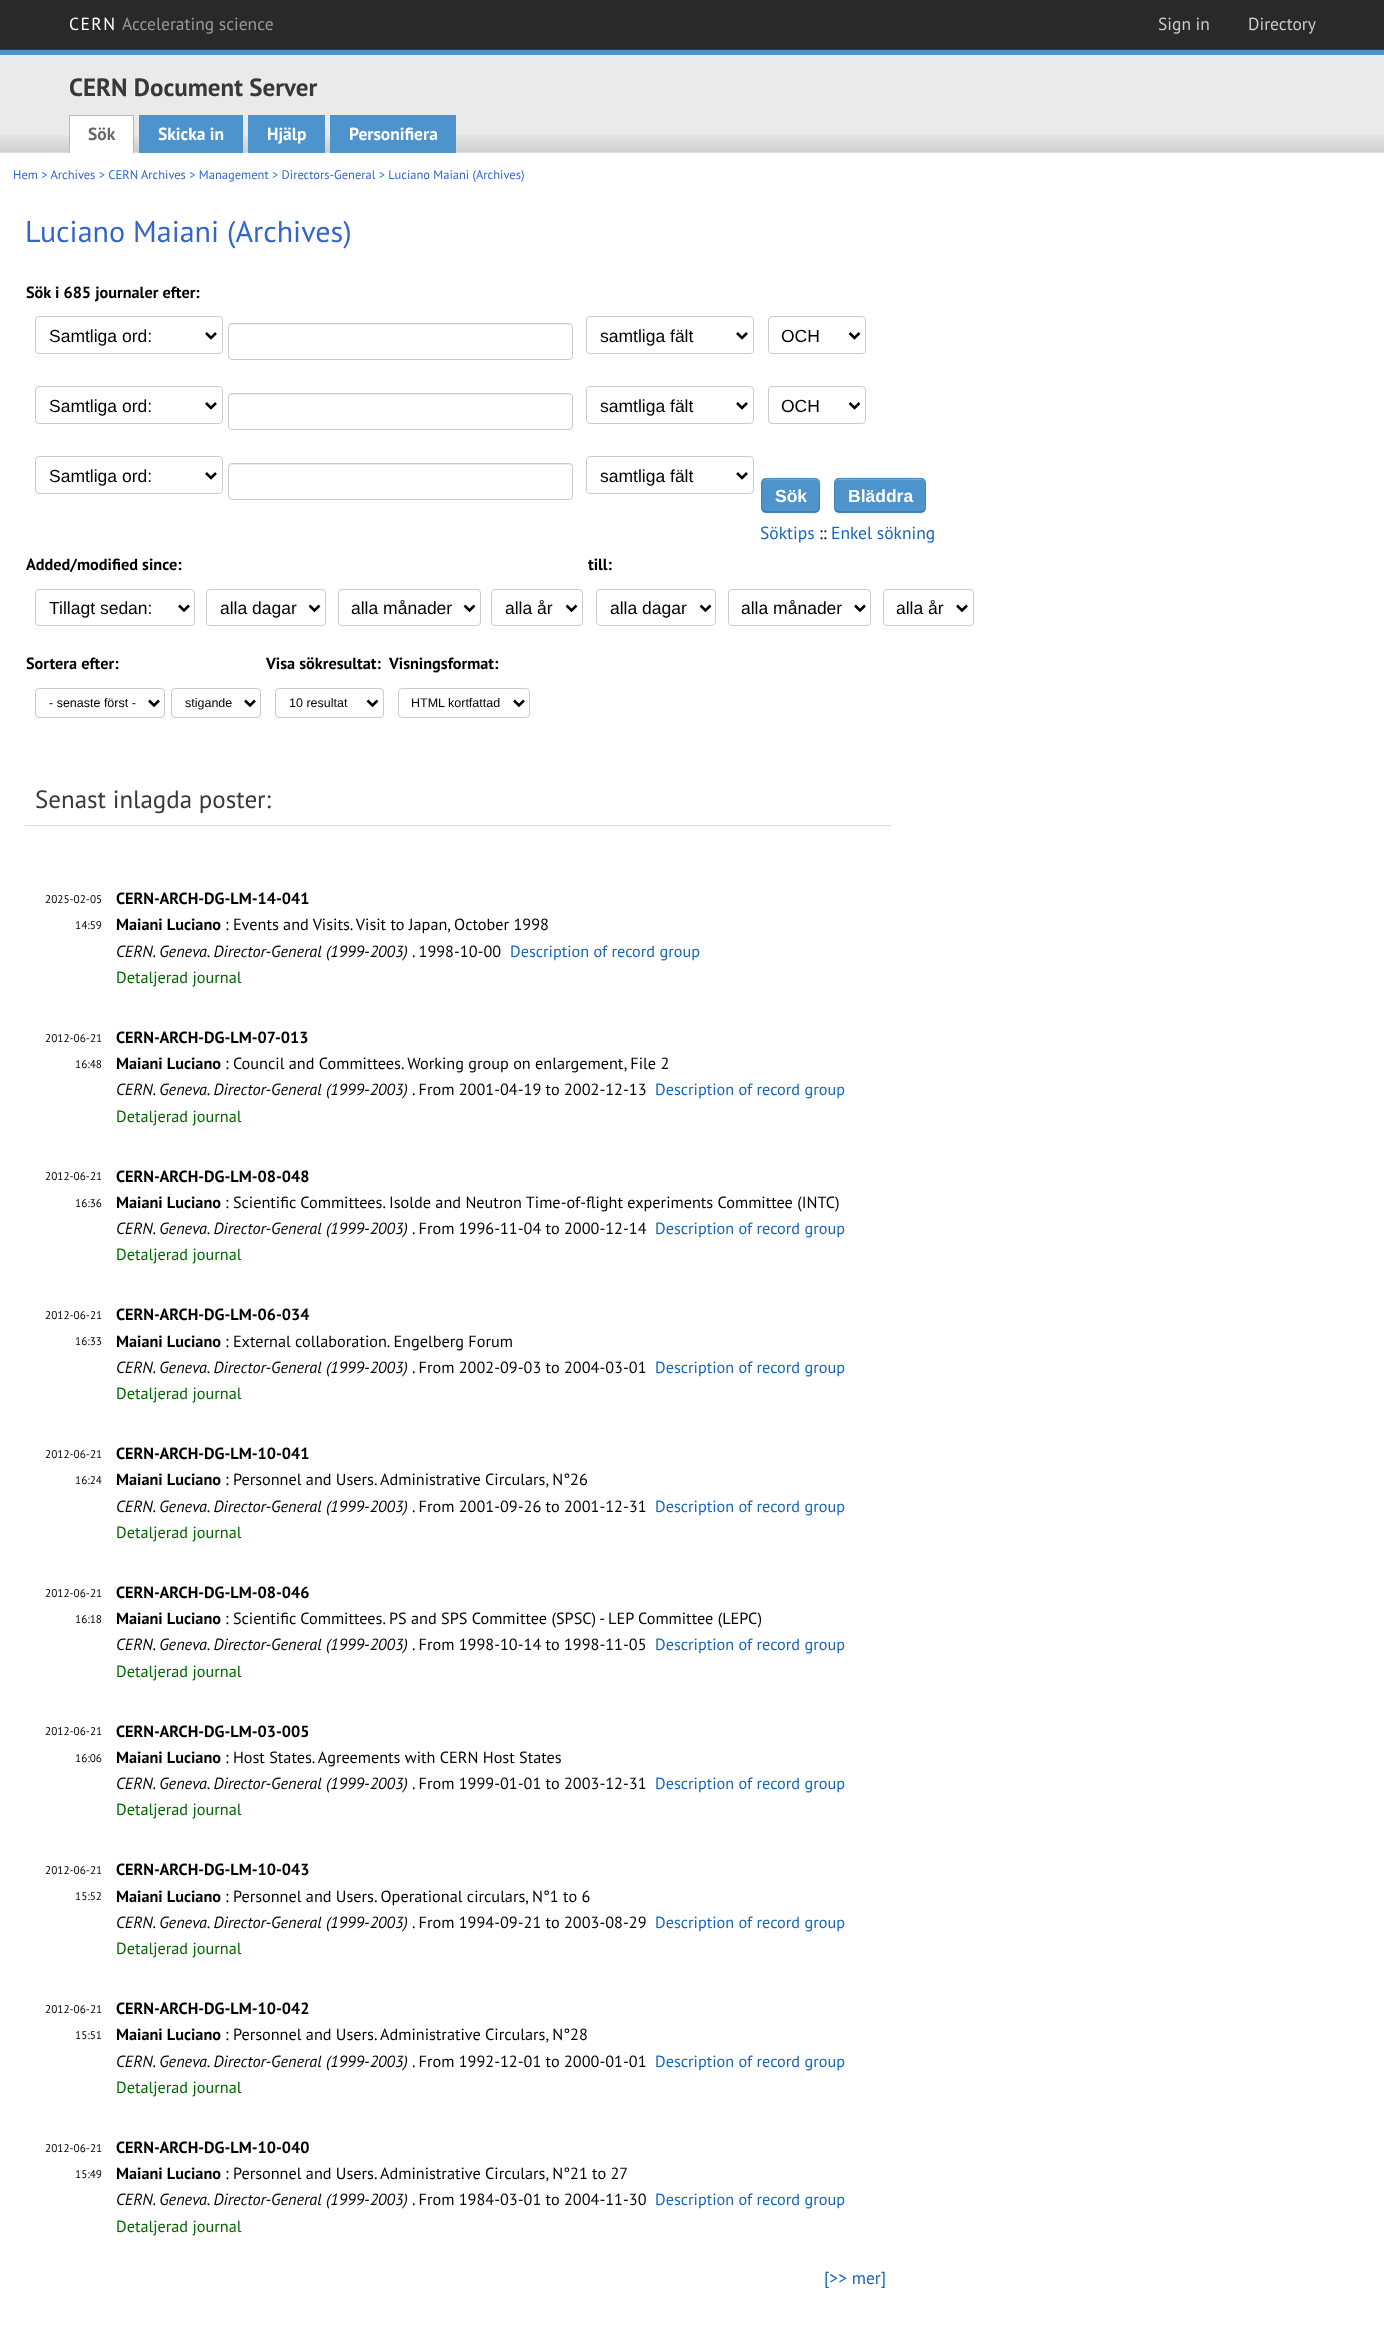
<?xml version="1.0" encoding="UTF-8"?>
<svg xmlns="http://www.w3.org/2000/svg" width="1384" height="2346">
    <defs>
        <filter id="blur1" x="-50%" y="-200%" width="200%" height="500%"><feGaussianBlur stdDeviation="1"/></filter>
    </defs>
    <rect width="100%" height="100%" fill="#FFFFFF"/>
    <rect x="0" y="0" width="1384" height="49" fill="#292929"/>
    <rect x="0" y="49" width="1384" height="1" fill="#353535"/>
    <text x="69" y="30" font-family="PT Sans" font-size="17.5" letter-spacing="1.5" fill="#FFFFFF">CERN</text>
    <text x="122" y="30" font-family="PT Sans" font-size="17.5" fill="#999999">Accelerating science</text>
    <text x="1158" y="30" font-family="PT Sans" font-size="17.5" fill="#CCCCCC">Sign in</text>
    <text x="1248" y="30" font-family="PT Sans" font-size="17.5" fill="#CCCCCC">Directory</text>
    <rect x="0" y="55" width="1384" height="98" fill="#EAEAEA"/>
    <image x="0" y="135" width="1384" height="18" href="img_01.png"/>
    <rect x="0" y="50" width="1384" height="5" fill="#4D94CC"/>
    <text x="69" y="96" font-family="PT Sans" font-size="25" font-weight="700" fill="#383838">CERN Document Server</text>
    <rect x="70" y="116" width="63" height="37" fill="#FFFFFF"/>
    <rect x="69" y="115" width="65" height="1" fill="#B8B8B8"/>
    <rect x="133" y="115" width="1" height="38" fill="#B8B8B8"/>
    <rect x="69" y="115" width="1" height="38" fill="#B8B8B8"/>
    <text x="88" y="140" font-family="PT Sans" font-size="17.5" font-weight="700" fill="#686868">Sök</text>
    <rect x="139" y="115" width="104" height="38" fill="#4D94CE"/>
    <text x="158" y="140" font-family="PT Sans" font-size="17.5" font-weight="700" fill="#FFFFFF">Skicka in</text>
    <rect x="248" y="115" width="77" height="38" fill="#4D94CE"/>
    <text x="267" y="140" font-family="PT Sans" font-size="17.5" font-weight="700" fill="#FFFFFF">Hjälp</text>
    <rect x="330" y="115" width="126" height="38" fill="#4D94CE"/>
    <text x="349" y="140" font-family="PT Sans" font-size="17.5" font-weight="700" fill="#FFFFFF">Personifiera</text>
    <text x="13" y="179" font-family="PT Sans" font-size="12.5" fill="#3366CC">Hem &gt; Archives &gt; CERN Archives &gt; Management &gt; Directors-General &gt; Luciano Maiani (Archives)</text>
    <text x="25" y="242" font-family="PT Sans" font-size="30" fill="#3366CC">Luciano Maiani (Archives)</text>
    <text x="26" y="298" font-family="PT Sans" font-size="16.25" font-weight="700" fill="#000000">Sök i 685 journaler efter:</text>
    <rect x="35.5" y="316.5" width="187" height="37" rx="3.5" fill="none" stroke="#CCCCCC"/>
    <path d="M 206 333 L 211 338 L 216 333" fill="none" stroke="#000000" stroke-width="2.5"/>
    <text x="49" y="342" font-family="Liberation Sans" font-size="17.5" fill="#000000">Samtliga ord:</text>
    <path d="M 231 325 H 569 C 570 325 571 326 571 328 C 571 326 571 324 568 324 H 231 L 229 325 V 328 C 229 326 230 325 231 325 Z" fill="#ECECEC"/>
    <rect x="228.5" y="323.5" width="344" height="36" rx="3.5" fill="none" stroke="#CCCCCC"/>
    <rect x="586.5" y="316.5" width="167" height="37" rx="3.5" fill="none" stroke="#CCCCCC"/>
    <path d="M 737 333 L 742 338 L 747 333" fill="none" stroke="#000000" stroke-width="2.5"/>
    <text x="600" y="342" font-family="Liberation Sans" font-size="17.5" fill="#000000">samtliga fält</text>
    <rect x="768.5" y="316.5" width="97" height="37" rx="3.5" fill="none" stroke="#CCCCCC"/>
    <path d="M 849.5 333 L 854.5 338 L 859.5 333" fill="none" stroke="#000000" stroke-width="2.5"/>
    <text x="781" y="342" font-family="Liberation Sans" font-size="17.5" fill="#000000">OCH</text>
    <rect x="35.5" y="386.5" width="187" height="37" rx="3.5" fill="none" stroke="#CCCCCC"/>
    <path d="M 206 403 L 211 408 L 216 403" fill="none" stroke="#000000" stroke-width="2.5"/>
    <text x="49" y="412" font-family="Liberation Sans" font-size="17.5" fill="#000000">Samtliga ord:</text>
    <path d="M 231 395 H 569 C 570 395 571 396 571 398 C 571 396 571 394 568 394 H 231 L 229 395 V 398 C 229 396 230 395 231 395 Z" fill="#ECECEC"/>
    <rect x="228.5" y="393.5" width="344" height="36" rx="3.5" fill="none" stroke="#CCCCCC"/>
    <rect x="586.5" y="386.5" width="167" height="37" rx="3.5" fill="none" stroke="#CCCCCC"/>
    <path d="M 737 403 L 742 408 L 747 403" fill="none" stroke="#000000" stroke-width="2.5"/>
    <text x="600" y="412" font-family="Liberation Sans" font-size="17.5" fill="#000000">samtliga fält</text>
    <rect x="768.5" y="386.5" width="97" height="37" rx="3.5" fill="none" stroke="#CCCCCC"/>
    <path d="M 849.5 403 L 854.5 408 L 859.5 403" fill="none" stroke="#000000" stroke-width="2.5"/>
    <text x="781" y="412" font-family="Liberation Sans" font-size="17.5" fill="#000000">OCH</text>
    <rect x="35.5" y="456.5" width="187" height="37" rx="3.5" fill="none" stroke="#CCCCCC"/>
    <path d="M 206 473 L 211 478 L 216 473" fill="none" stroke="#000000" stroke-width="2.5"/>
    <text x="49" y="482" font-family="Liberation Sans" font-size="17.5" fill="#000000">Samtliga ord:</text>
    <path d="M 231 465 H 569 C 570 465 571 466 571 468 C 571 466 571 464 568 464 H 231 L 229 465 V 468 C 229 466 230 465 231 465 Z" fill="#ECECEC"/>
    <rect x="228.5" y="463.5" width="344" height="36" rx="3.5" fill="none" stroke="#CCCCCC"/>
    <rect x="586.5" y="456.5" width="167" height="37" rx="3.5" fill="none" stroke="#CCCCCC"/>
    <path d="M 737 473 L 742 478 L 747 473" fill="none" stroke="#000000" stroke-width="2.5"/>
    <text x="600" y="482" font-family="Liberation Sans" font-size="17.5" fill="#000000">samtliga fält</text>
    <rect x="761" y="479" width="59" height="35" rx="5" fill="#000000" fill-opacity="0.05" filter="url(#blur1)"/>
    <rect x="761" y="478" width="59" height="35" rx="5" fill="#4D94CC"/>
    <path d="M 766 480 H 815 C 817 480 819 482 819 484 V 483 C 819 481 817 479 815 479 H 767 C 766 479 764 480 764 481 Z" fill="#71A9D6"/>
    <path d="M 818 510.5 C 817.5 511.5 816 512 815 512 H 766 C 765 512 764 511.5 763 510.5" fill="none" stroke="#000000" stroke-opacity="0.25" stroke-width="1.2"/>
    <path d="M 763 510.5 C 760.5 508 762 498 762 495 C 762 479 758.5 478 774.5 478 H 807 C 822.5 478 819.5 479 819.5 495 C 819.5 498 820.5 508 818 510.5" fill="none" stroke="#000000" stroke-opacity="0.1" stroke-width="1.2"/>
    <text x="775" y="502" font-family="Liberation Sans" font-size="17.5" font-weight="700" fill="#FFFFFF">Sök</text>
    <rect x="834" y="479" width="92" height="35" rx="5" fill="#000000" fill-opacity="0.05" filter="url(#blur1)"/>
    <rect x="834" y="478" width="92" height="35" rx="5" fill="#4D94CC"/>
    <path d="M 839 480 H 921 C 923 480 925 482 925 484 C 925 476 912 479 907 479 H 853 C 848 479 835 476 835 484 C 835 482 837 480 839 480 Z" fill="#71A9D6"/>
    <path d="M 924.5 510.5 L 921.5 512 H 838.5 L 835.5 510.5" fill="none" stroke="#000000" stroke-opacity="0.25" stroke-width="1.2"/>
    <path d="M 835.5 510.5 C 833 508 834.5 498 834.5 495 C 834.5 475.5 832 478 852.5 478 H 907.5 C 928 478 925.5 475.5 925.5 495 C 925.5 498 927 508 924.5 510.5" fill="none" stroke="#000000" stroke-opacity="0.1" stroke-width="1.2"/>
    <text x="848" y="502" font-family="Liberation Sans" font-size="17.5" font-weight="700" fill="#FFFFFF">Bläddra</text>
    <text x="760" y="539" font-family="PT Sans" font-size="17.5" fill="#1565BA">Söktips</text>
    <text x="819" y="539" font-family="PT Sans" font-size="17.5" fill="#000000">::</text>
    <text x="831" y="539" font-family="PT Sans" font-size="17.5" fill="#1565BA">Enkel sökning</text>
    <text x="26" y="570" font-family="PT Sans" font-size="16.25" font-weight="700" fill="#000000">Added/modified since:</text>
    <text x="588" y="570" font-family="PT Sans" font-size="16.25" font-weight="700" fill="#000000">till:</text>
    <rect x="35.5" y="589.5" width="159" height="36" rx="3.5" fill="none" stroke="#CCCCCC"/>
    <path d="M 179 605.5 L 184 610.5 L 189 605.5" fill="none" stroke="#000000" stroke-width="2.5"/>
    <text x="49" y="614" font-family="Liberation Sans" font-size="17.5" fill="#000000">Tillagt sedan:</text>
    <rect x="206.5" y="589.5" width="119" height="36" rx="3.5" fill="none" stroke="#CCCCCC"/>
    <path d="M 309.5 605.5 L 314.5 610.5 L 319.5 605.5" fill="none" stroke="#000000" stroke-width="2.5"/>
    <text x="220" y="614" font-family="Liberation Sans" font-size="17.5" fill="#000000">alla dagar</text>
    <rect x="338.5" y="589.5" width="142" height="36" rx="3.5" fill="none" stroke="#CCCCCC"/>
    <path d="M 464.5 605.5 L 469.5 610.5 L 474.5 605.5" fill="none" stroke="#000000" stroke-width="2.5"/>
    <text x="351" y="614" font-family="Liberation Sans" font-size="17.5" fill="#000000">alla månader</text>
    <rect x="491.5" y="589.5" width="91" height="36" rx="3.5" fill="none" stroke="#CCCCCC"/>
    <path d="M 566.5 605.5 L 571.5 610.5 L 576.5 605.5" fill="none" stroke="#000000" stroke-width="2.5"/>
    <text x="505" y="614" font-family="Liberation Sans" font-size="17.5" fill="#000000">alla år</text>
    <rect x="596.5" y="589.5" width="119" height="36" rx="3.5" fill="none" stroke="#CCCCCC"/>
    <path d="M 700.5 605.5 L 705.5 610.5 L 710.5 605.5" fill="none" stroke="#000000" stroke-width="2.5"/>
    <text x="610" y="614" font-family="Liberation Sans" font-size="17.5" fill="#000000">alla dagar</text>
    <rect x="728.5" y="589.5" width="142" height="36" rx="3.5" fill="none" stroke="#CCCCCC"/>
    <path d="M 855 605.5 L 860 610.5 L 865 605.5" fill="none" stroke="#000000" stroke-width="2.5"/>
    <text x="741" y="614" font-family="Liberation Sans" font-size="17.5" fill="#000000">alla månader</text>
    <rect x="883.5" y="589.5" width="90" height="36" rx="3.5" fill="none" stroke="#CCCCCC"/>
    <path d="M 957 605.5 L 962 610.5 L 967 605.5" fill="none" stroke="#000000" stroke-width="2.5"/>
    <text x="896" y="614" font-family="Liberation Sans" font-size="17.5" fill="#000000">alla år</text>
    <text x="26" y="669" font-family="PT Sans" font-size="16.25" font-weight="700" fill="#000000">Sortera efter:</text>
    <text x="266" y="669" font-family="PT Sans" font-size="16.25" font-weight="700" fill="#000000">Visa sökresultat:</text>
    <text x="389" y="669" font-family="PT Sans" font-size="16.25" font-weight="700" fill="#000000">Visningsformat:</text>
    <rect x="35.5" y="688.5" width="129" height="29" rx="3.5" fill="none" stroke="#CCCCCC"/>
    <path d="M 149 700.5 L 154 705.5 L 159 700.5" fill="none" stroke="#000000" stroke-width="2.5"/>
    <text x="49" y="707" font-family="Liberation Sans" font-size="12.5" fill="#000000">- senaste först -</text>
    <rect x="171.5" y="688.5" width="89" height="29" rx="3.5" fill="none" stroke="#CCCCCC"/>
    <path d="M 245 700.5 L 250 705.5 L 255 700.5" fill="none" stroke="#000000" stroke-width="2.5"/>
    <text x="185" y="707" font-family="Liberation Sans" font-size="12.5" fill="#000000">stigande</text>
    <rect x="275.5" y="688.5" width="108" height="29" rx="3.5" fill="none" stroke="#CCCCCC"/>
    <path d="M 367.5 700.5 L 372.5 705.5 L 377.5 700.5" fill="none" stroke="#000000" stroke-width="2.5"/>
    <text x="289" y="707" font-family="Liberation Sans" font-size="12.5" fill="#000000">10 resultat</text>
    <rect x="398.5" y="688.5" width="131" height="29" rx="3.5" fill="none" stroke="#CCCCCC"/>
    <path d="M 514 700.5 L 519 705.5 L 524 700.5" fill="none" stroke="#000000" stroke-width="2.5"/>
    <text x="411" y="707" font-family="Liberation Sans" font-size="12.5" fill="#000000">HTML kortfattad</text>
    <rect x="25" y="825" width="866" height="1" fill="#DDDDDD"/>
    <text x="35" y="808" font-family="PT Sans" font-size="25" fill="#383838">Senast inlagda poster:</text>
    <text x="45" y="903" font-family="PT Sans" font-size="11.25" fill="#000000">2025-02-05</text>
    <text x="75" y="929" font-family="PT Sans" font-size="11.25" fill="#000000">14:59</text>
    <text font-family="PT Sans" font-size="16.25" font-weight="700" fill="#000000">
        <tspan x="116" y="904">CERN-ARCH-DG-LM-14-041</tspan>
        <tspan x="116" y="930">Maiani Luciano</tspan>
    </text>
    <text x="225" y="930" font-family="PT Sans" font-size="16.25" fill="#000000">: Events and Visits. Visit to Japan, October 1998</text>
    <text x="116" y="957" font-family="PT Sans" font-size="16.25" font-style="italic" fill="#000000">CERN. Geneva. Director-General (1999-2003)</text>
    <text x="412" y="957" font-family="PT Sans" font-size="16.25" fill="#000000">. 1998-10-00</text>
    <text x="510" y="957" font-family="PT Sans" font-size="16.25" fill="#1565BA">Description of record group</text>
    <text x="116" y="983" font-family="PT Sans" font-size="16.25" fill="#006600">Detaljerad journal</text>
    <text x="45" y="1042" font-family="PT Sans" font-size="11.25" fill="#000000">2012-06-21</text>
    <text x="75" y="1068" font-family="PT Sans" font-size="11.25" fill="#000000">16:48</text>
    <text font-family="PT Sans" font-size="16.25" font-weight="700" fill="#000000">
        <tspan x="116" y="1043">CERN-ARCH-DG-LM-07-013</tspan>
        <tspan x="116" y="1069">Maiani Luciano</tspan>
    </text>
    <text x="225" y="1069" font-family="PT Sans" font-size="16.25" fill="#000000">: Council and Committees. Working group on enlargement, File 2</text>
    <text x="116" y="1095" font-family="PT Sans" font-size="16.25" font-style="italic" fill="#000000">CERN. Geneva. Director-General (1999-2003)</text>
    <text x="412" y="1095" font-family="PT Sans" font-size="16.25" fill="#000000">. From 2001-04-19 to 2002-12-13</text>
    <text x="655" y="1095" font-family="PT Sans" font-size="16.25" fill="#1565BA">Description of record group</text>
    <text x="116" y="1122" font-family="PT Sans" font-size="16.25" fill="#006600">Detaljerad journal</text>
    <text x="45" y="1180" font-family="PT Sans" font-size="11.25" fill="#000000">2012-06-21</text>
    <text x="75" y="1207" font-family="PT Sans" font-size="11.25" fill="#000000">16:36</text>
    <text font-family="PT Sans" font-size="16.25" font-weight="700" fill="#000000">
        <tspan x="116" y="1182">CERN-ARCH-DG-LM-08-048</tspan>
        <tspan x="116" y="1208">Maiani Luciano</tspan>
    </text>
    <text x="225" y="1208" font-family="PT Sans" font-size="16.25" fill="#000000">: Scientific Committees. Isolde and Neutron Time-of-flight experiments Committee (INTC)</text>
    <text x="116" y="1234" font-family="PT Sans" font-size="16.25" font-style="italic" fill="#000000">CERN. Geneva. Director-General (1999-2003)</text>
    <text x="412" y="1234" font-family="PT Sans" font-size="16.25" fill="#000000">. From 1996-11-04 to 2000-12-14</text>
    <text x="655" y="1234" font-family="PT Sans" font-size="16.25" fill="#1565BA">Description of record group</text>
    <text x="116" y="1260" font-family="PT Sans" font-size="16.25" fill="#006600">Detaljerad journal</text>
    <text x="45" y="1319" font-family="PT Sans" font-size="11.25" fill="#000000">2012-06-21</text>
    <text x="75" y="1345" font-family="PT Sans" font-size="11.25" fill="#000000">16:33</text>
    <text font-family="PT Sans" font-size="16.25" font-weight="700" fill="#000000">
        <tspan x="116" y="1320">CERN-ARCH-DG-LM-06-034</tspan>
        <tspan x="116" y="1347">Maiani Luciano</tspan>
    </text>
    <text x="225" y="1347" font-family="PT Sans" font-size="16.25" fill="#000000">: External collaboration. Engelberg Forum</text>
    <text x="116" y="1373" font-family="PT Sans" font-size="16.25" font-style="italic" fill="#000000">CERN. Geneva. Director-General (1999-2003)</text>
    <text x="412" y="1373" font-family="PT Sans" font-size="16.25" fill="#000000">. From 2002-09-03 to 2004-03-01</text>
    <text x="655" y="1373" font-family="PT Sans" font-size="16.25" fill="#1565BA">Description of record group</text>
    <text x="116" y="1399" font-family="PT Sans" font-size="16.25" fill="#006600">Detaljerad journal</text>
    <text x="45" y="1458" font-family="PT Sans" font-size="11.25" fill="#000000">2012-06-21</text>
    <text x="75" y="1484" font-family="PT Sans" font-size="11.25" fill="#000000">16:24</text>
    <text font-family="PT Sans" font-size="16.25" font-weight="700" fill="#000000">
        <tspan x="116" y="1459">CERN-ARCH-DG-LM-10-041</tspan>
        <tspan x="116" y="1485">Maiani Luciano</tspan>
    </text>
    <text x="225" y="1485" font-family="PT Sans" font-size="16.25" fill="#000000">: Personnel and Users. Administrative Circulars, N°26</text>
    <text x="116" y="1512" font-family="PT Sans" font-size="16.25" font-style="italic" fill="#000000">CERN. Geneva. Director-General (1999-2003)</text>
    <text x="412" y="1512" font-family="PT Sans" font-size="16.25" fill="#000000">. From 2001-09-26 to 2001-12-31</text>
    <text x="655" y="1512" font-family="PT Sans" font-size="16.25" fill="#1565BA">Description of record group</text>
    <text x="116" y="1538" font-family="PT Sans" font-size="16.25" fill="#006600">Detaljerad journal</text>
    <text x="45" y="1597" font-family="PT Sans" font-size="11.25" fill="#000000">2012-06-21</text>
    <text x="75" y="1623" font-family="PT Sans" font-size="11.25" fill="#000000">16:18</text>
    <text font-family="PT Sans" font-size="16.25" font-weight="700" fill="#000000">
        <tspan x="116" y="1598">CERN-ARCH-DG-LM-08-046</tspan>
        <tspan x="116" y="1624">Maiani Luciano</tspan>
    </text>
    <text x="225" y="1624" font-family="PT Sans" font-size="16.25" fill="#000000">: Scientific Committees. PS and SPS Committee (SPSC) - LEP Committee (LEPC)</text>
    <text x="116" y="1650" font-family="PT Sans" font-size="16.25" font-style="italic" fill="#000000">CERN. Geneva. Director-General (1999-2003)</text>
    <text x="412" y="1650" font-family="PT Sans" font-size="16.25" fill="#000000">. From 1998-10-14 to 1998-11-05</text>
    <text x="655" y="1650" font-family="PT Sans" font-size="16.25" fill="#1565BA">Description of record group</text>
    <text x="116" y="1677" font-family="PT Sans" font-size="16.25" fill="#006600">Detaljerad journal</text>
    <text x="45" y="1735" font-family="PT Sans" font-size="11.25" fill="#000000">2012-06-21</text>
    <text x="75" y="1762" font-family="PT Sans" font-size="11.25" fill="#000000">16:06</text>
    <text font-family="PT Sans" font-size="16.25" font-weight="700" fill="#000000">
        <tspan x="116" y="1737">CERN-ARCH-DG-LM-03-005</tspan>
        <tspan x="116" y="1763">Maiani Luciano</tspan>
    </text>
    <text x="225" y="1763" font-family="PT Sans" font-size="16.25" fill="#000000">: Host States. Agreements with CERN Host States</text>
    <text x="116" y="1789" font-family="PT Sans" font-size="16.25" font-style="italic" fill="#000000">CERN. Geneva. Director-General (1999-2003)</text>
    <text x="412" y="1789" font-family="PT Sans" font-size="16.25" fill="#000000">. From 1999-01-01 to 2003-12-31</text>
    <text x="655" y="1789" font-family="PT Sans" font-size="16.25" fill="#1565BA">Description of record group</text>
    <text x="116" y="1815" font-family="PT Sans" font-size="16.25" fill="#006600">Detaljerad journal</text>
    <text x="45" y="1874" font-family="PT Sans" font-size="11.25" fill="#000000">2012-06-21</text>
    <text x="75" y="1900" font-family="PT Sans" font-size="11.25" fill="#000000">15:52</text>
    <text font-family="PT Sans" font-size="16.25" font-weight="700" fill="#000000">
        <tspan x="116" y="1875">CERN-ARCH-DG-LM-10-043</tspan>
        <tspan x="116" y="1902">Maiani Luciano</tspan>
    </text>
    <text x="225" y="1902" font-family="PT Sans" font-size="16.25" fill="#000000">: Personnel and Users. Operational circulars, N°1 to 6</text>
    <text x="116" y="1928" font-family="PT Sans" font-size="16.25" font-style="italic" fill="#000000">CERN. Geneva. Director-General (1999-2003)</text>
    <text x="412" y="1928" font-family="PT Sans" font-size="16.25" fill="#000000">. From 1994-09-21 to 2003-08-29</text>
    <text x="655" y="1928" font-family="PT Sans" font-size="16.25" fill="#1565BA">Description of record group</text>
    <text x="116" y="1954" font-family="PT Sans" font-size="16.25" fill="#006600">Detaljerad journal</text>
    <text x="45" y="2013" font-family="PT Sans" font-size="11.25" fill="#000000">2012-06-21</text>
    <text x="75" y="2039" font-family="PT Sans" font-size="11.25" fill="#000000">15:51</text>
    <text font-family="PT Sans" font-size="16.25" font-weight="700" fill="#000000">
        <tspan x="116" y="2014">CERN-ARCH-DG-LM-10-042</tspan>
        <tspan x="116" y="2040">Maiani Luciano</tspan>
    </text>
    <text x="225" y="2040" font-family="PT Sans" font-size="16.25" fill="#000000">: Personnel and Users. Administrative Circulars, N°28</text>
    <text x="116" y="2067" font-family="PT Sans" font-size="16.25" font-style="italic" fill="#000000">CERN. Geneva. Director-General (1999-2003)</text>
    <text x="412" y="2067" font-family="PT Sans" font-size="16.25" fill="#000000">. From 1992-12-01 to 2000-01-01</text>
    <text x="655" y="2067" font-family="PT Sans" font-size="16.25" fill="#1565BA">Description of record group</text>
    <text x="116" y="2093" font-family="PT Sans" font-size="16.25" fill="#006600">Detaljerad journal</text>
    <text x="45" y="2152" font-family="PT Sans" font-size="11.25" fill="#000000">2012-06-21</text>
    <text x="75" y="2178" font-family="PT Sans" font-size="11.25" fill="#000000">15:49</text>
    <text font-family="PT Sans" font-size="16.25" font-weight="700" fill="#000000">
        <tspan x="116" y="2153">CERN-ARCH-DG-LM-10-040</tspan>
        <tspan x="116" y="2179">Maiani Luciano</tspan>
    </text>
    <text x="225" y="2179" font-family="PT Sans" font-size="16.25" fill="#000000">: Personnel and Users. Administrative Circulars, N°21 to 27</text>
    <text x="116" y="2205" font-family="PT Sans" font-size="16.25" font-style="italic" fill="#000000">CERN. Geneva. Director-General (1999-2003)</text>
    <text x="412" y="2205" font-family="PT Sans" font-size="16.25" fill="#000000">. From 1984-03-01 to 2004-11-30</text>
    <text x="655" y="2205" font-family="PT Sans" font-size="16.25" fill="#1565BA">Description of record group</text>
    <text x="116" y="2232" font-family="PT Sans" font-size="16.25" fill="#006600">Detaljerad journal</text>
    <text x="824" y="2284" font-family="PT Sans" font-size="17.5" fill="#1565BA">[&gt;&gt; mer]</text>
</svg>
